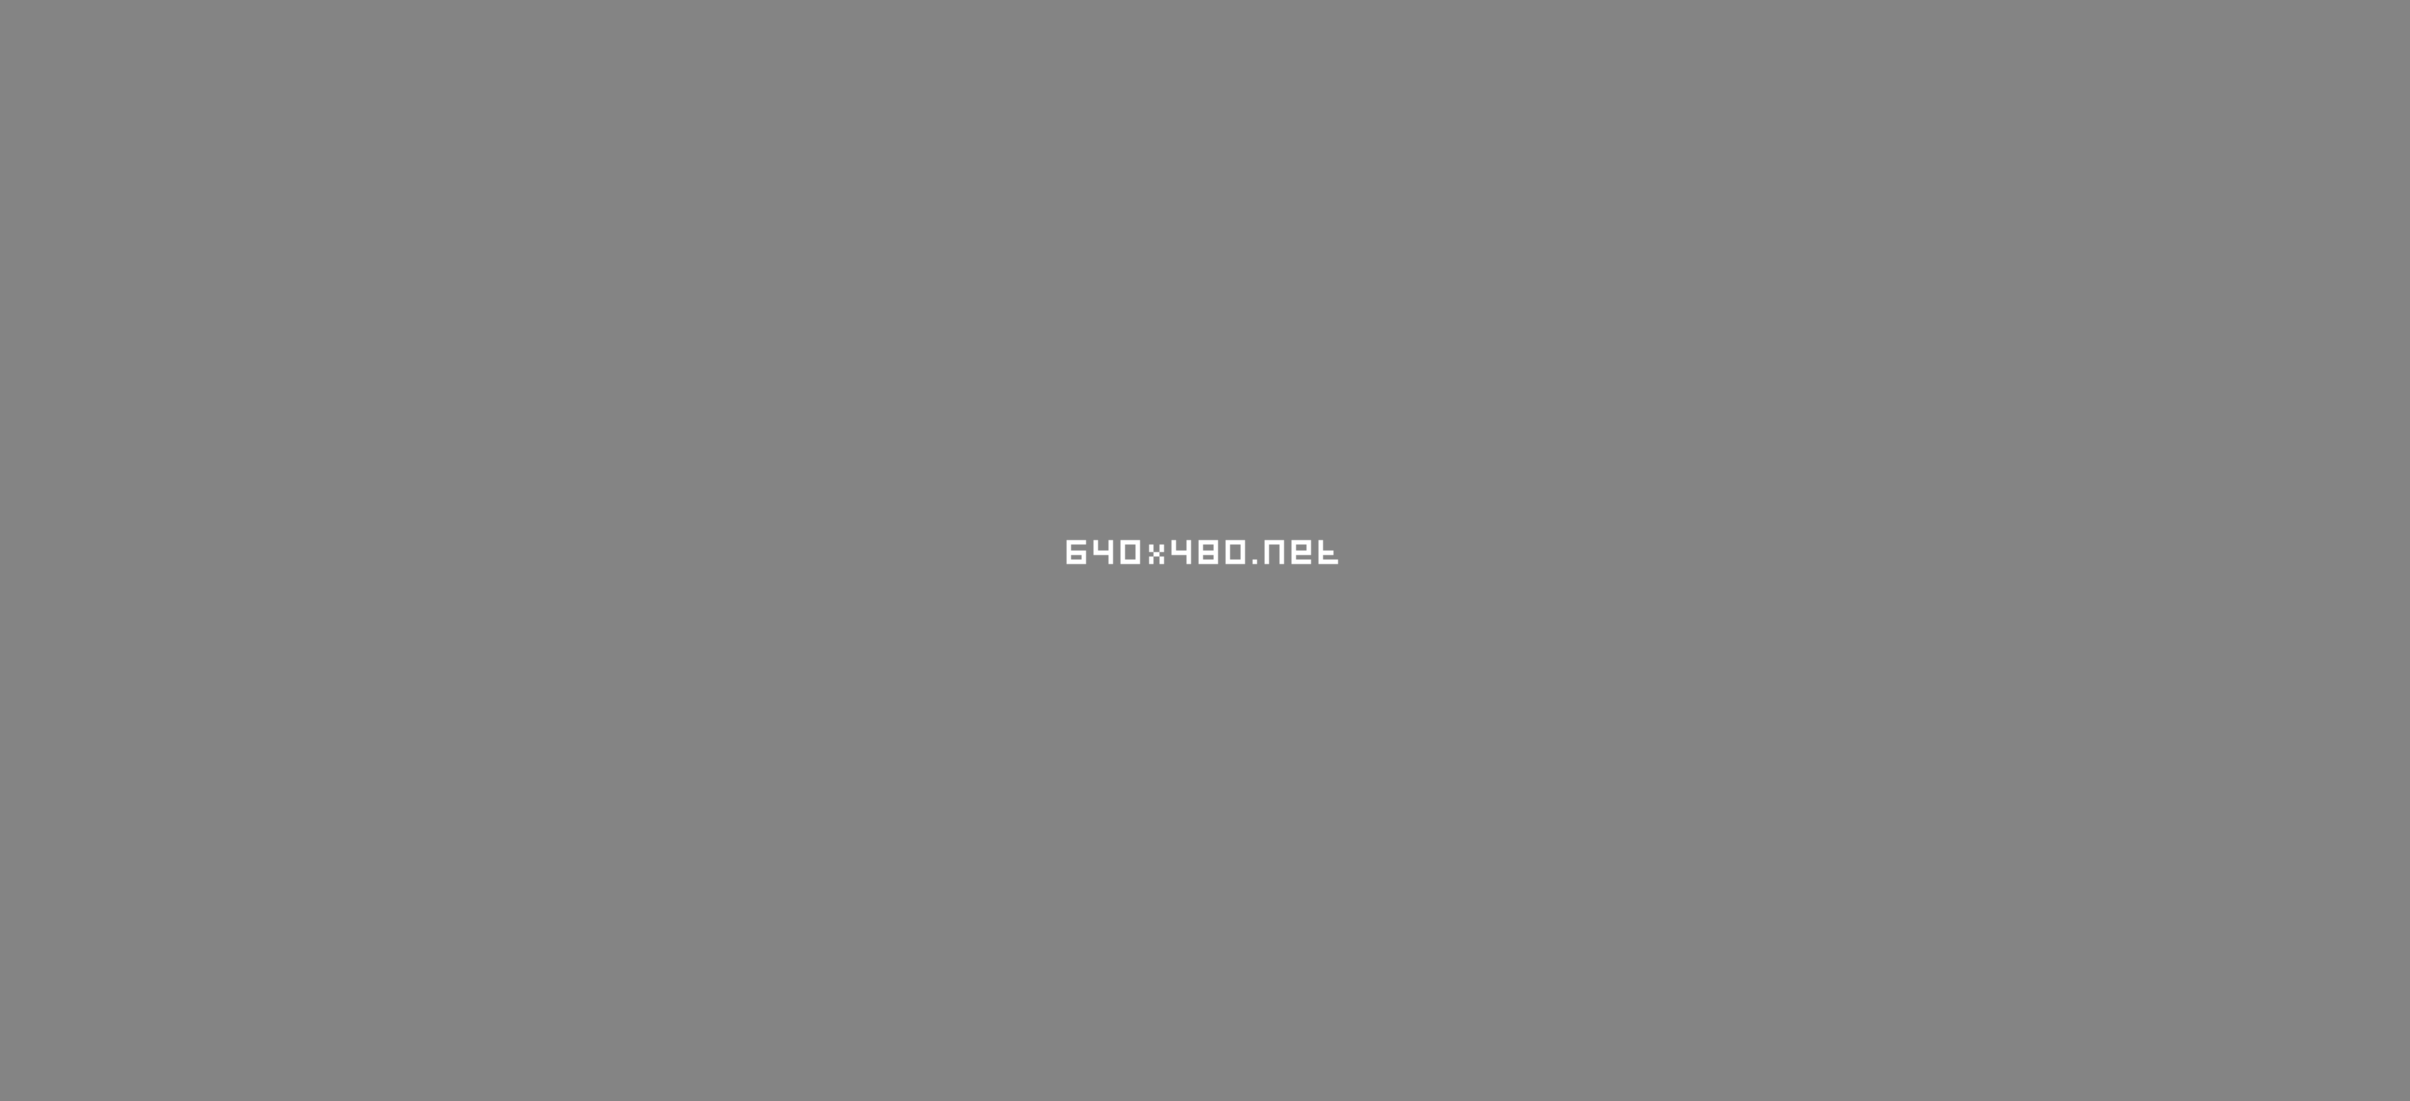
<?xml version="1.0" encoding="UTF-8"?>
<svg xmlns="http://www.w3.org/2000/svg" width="2410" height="1101">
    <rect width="100%" height="100%" fill="#848484"/>
    <image x="1066" y="539" width="273" height="26" href="img_01.png"/>
</svg>
